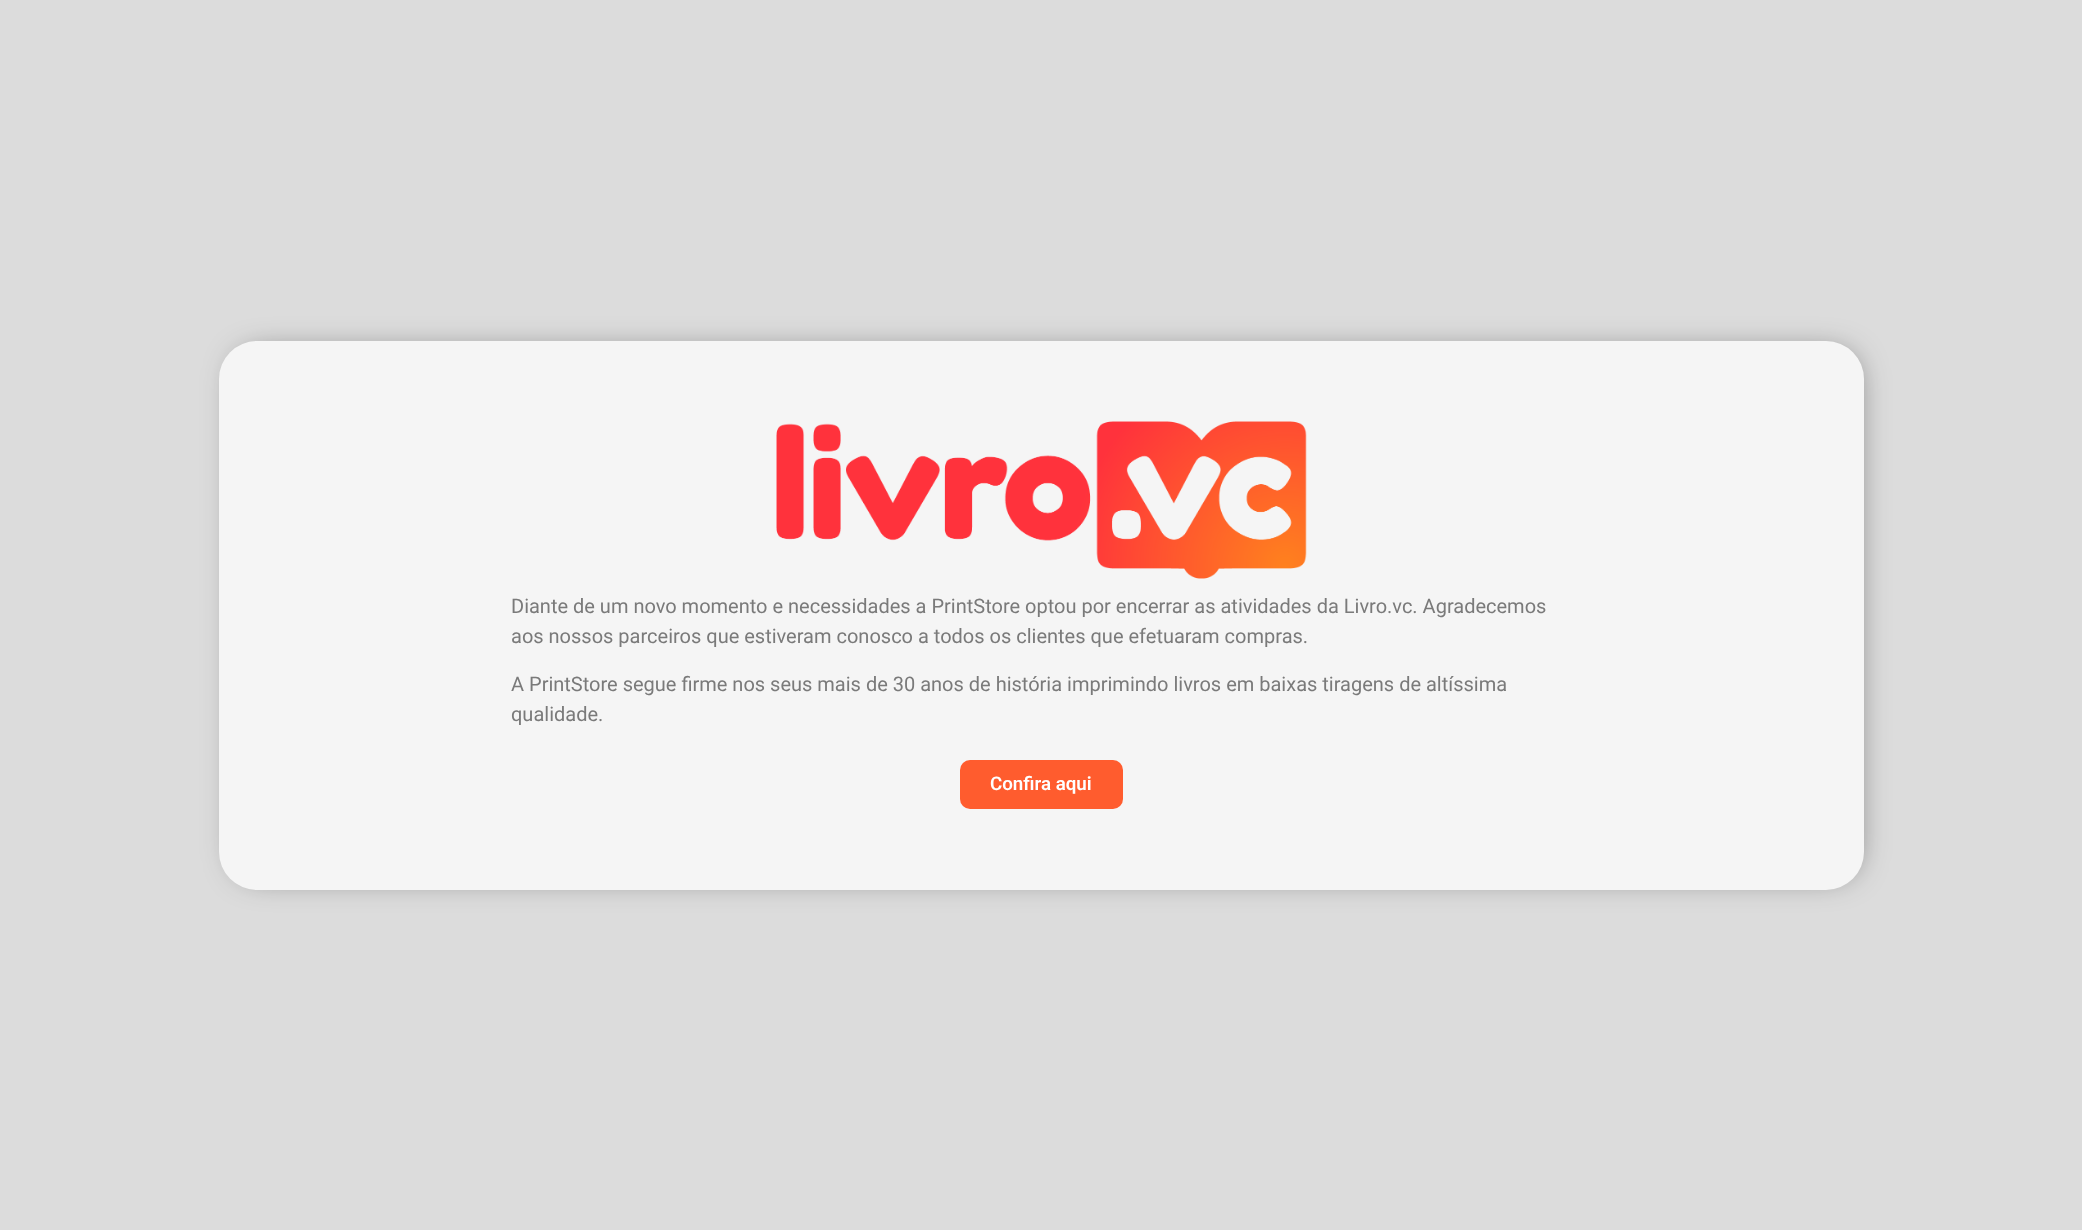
<?xml version="1.0" encoding="UTF-8"?>
<svg xmlns="http://www.w3.org/2000/svg" width="2082" height="1230">
    <defs>
        <filter id="blur1" x="-50%" y="-200%" width="200%" height="500%"><feGaussianBlur stdDeviation="16"/></filter>
    </defs>
    <rect width="100%" height="100%" fill="#DCDCDC"/>
    <rect x="236" y="353" width="1620" height="523" rx="25" fill="#000000" fill-opacity="0.5" filter="url(#blur1)"/>
    <rect x="219" y="341" width="1645" height="549" rx="38" fill="#F5F5F5"/>
    <image x="776" y="421" width="531" height="158" href="img_01.png"/>
    <text font-family="Roboto" font-size="20" fill="#7A7A7A">
        <tspan x="511" y="613">Diante de um novo momento e necessidades a PrintStore optou por encerrar as atividades da Livro.vc. Agradecemos</tspan>
        <tspan x="511" y="643">aos nossos parceiros que estiveram conosco a todos os clientes que efetuaram compras.</tspan>
    </text>
    <text font-family="Roboto" font-size="20" fill="#7A7A7A">
        <tspan x="511" y="691">A PrintStore segue firme nos seus mais de 30 anos de história imprimindo livros em baixas tiragens de altíssima</tspan>
        <tspan x="511" y="721">qualidade.</tspan>
    </text>
    <rect x="960" y="760" width="163" height="49" rx="10" fill="#FF5C2E"/>
    <text x="990" y="790" font-family="Roboto" font-size="18.75" font-weight="600" fill="#FFFFFF">Confira aqui</text>
</svg>
